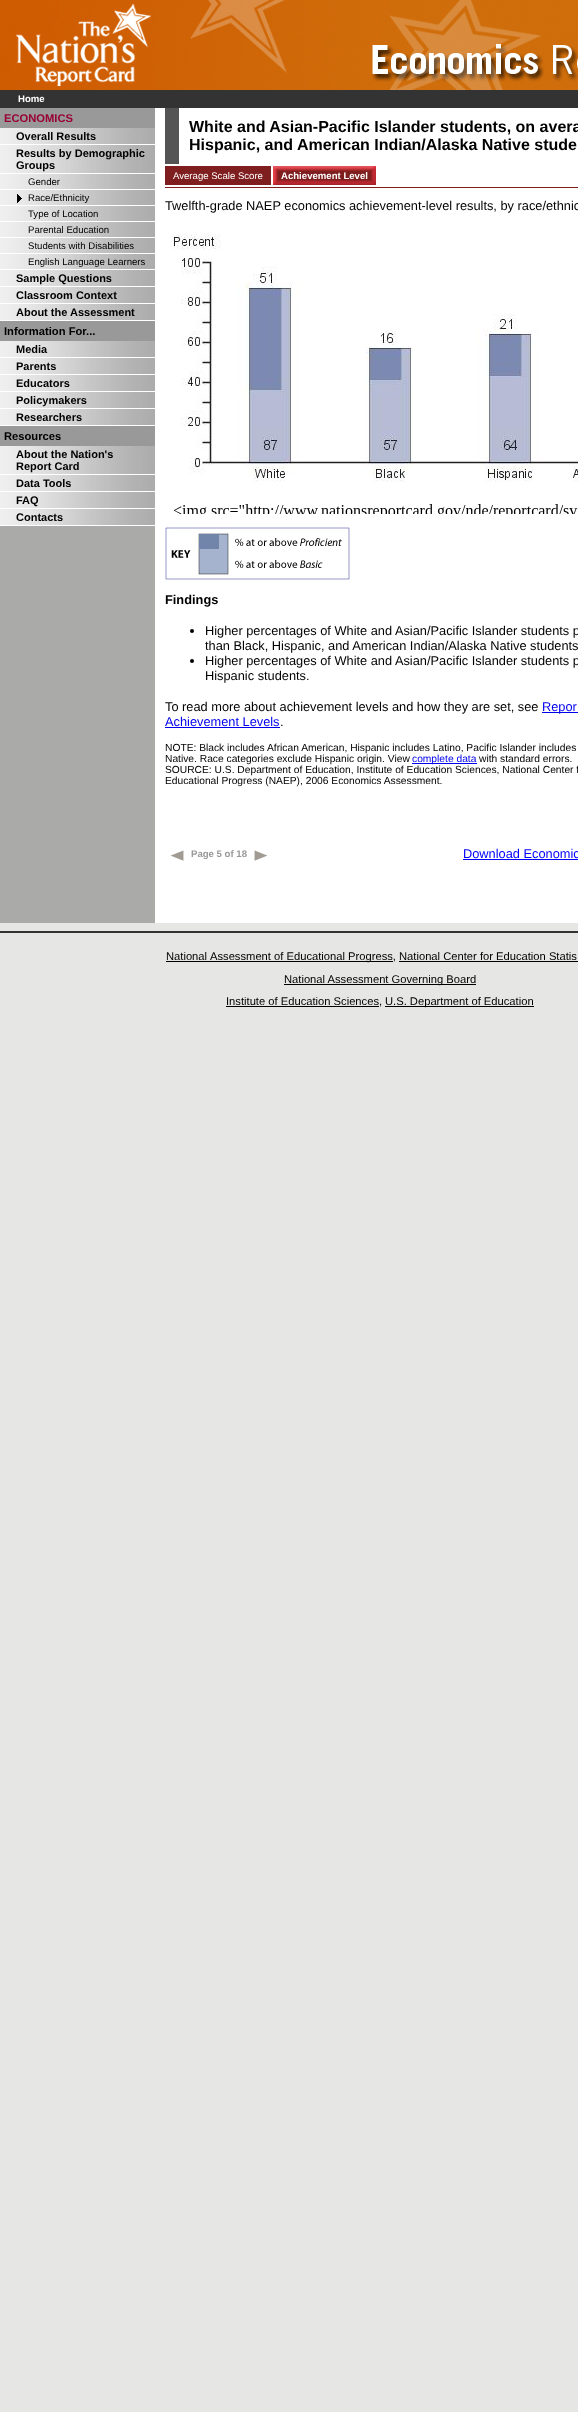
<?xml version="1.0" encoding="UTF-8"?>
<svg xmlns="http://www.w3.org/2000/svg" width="578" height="2412">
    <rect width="100%" height="100%" fill="#E6E6E5"/>
    <image x="0" y="0" width="578" height="90" href="img_01.png"/>
    <rect x="0" y="90" width="578" height="18" fill="#333333"/>
    <text x="18" y="102" font-family="Liberation Sans" font-size="9.6" font-weight="700" fill="#FFFFFF">Home</text>
    <rect x="0" y="128" width="155" height="795" fill="#AAAAA8"/>
    <rect x="0" y="108" width="155" height="20" fill="#999999"/>
    <text x="4" y="122" font-family="Liberation Sans" font-size="11.2" font-weight="700" fill="#990033">ECONOMICS</text>
    <image x="0" y="128" width="154" height="16" href="img_02.png"/>
    <rect x="0" y="144" width="155" height="1" fill="#FFFFFF"/>
    <text x="16" y="140" font-family="Liberation Sans" font-size="11" font-weight="700" fill="#000000">Overall Results</text>
    <image x="0" y="145" width="154" height="28" href="img_03.png"/>
    <rect x="0" y="173" width="155" height="1" fill="#FFFFFF"/>
    <text font-family="Liberation Sans" font-size="11" font-weight="700" fill="#000000">
        <tspan x="16" y="157">Results by Demographic</tspan>
        <tspan x="16" y="169">Groups</tspan>
    </text>
    <image x="0" y="174" width="154" height="15" href="img_04.png"/>
    <rect x="0" y="189" width="155" height="1" fill="#FFFFFF"/>
    <text x="28" y="185" font-family="Liberation Sans" font-size="9.6" fill="#000000">Gender</text>
    <image x="0" y="190" width="154" height="15" href="img_05.png"/>
    <rect x="0" y="205" width="155" height="1" fill="#FFFFFF"/>
    <text x="28" y="201" font-family="Liberation Sans" font-size="9.6" fill="#000000">Race/Ethnicity</text>
    <image x="0" y="206" width="154" height="15" href="img_04.png"/>
    <rect x="0" y="221" width="155" height="1" fill="#FFFFFF"/>
    <text x="28" y="217" font-family="Liberation Sans" font-size="9.6" fill="#000000">Type of Location</text>
    <image x="0" y="222" width="154" height="15" href="img_04.png"/>
    <rect x="0" y="237" width="155" height="1" fill="#FFFFFF"/>
    <text x="28" y="233" font-family="Liberation Sans" font-size="9.6" fill="#000000">Parental Education</text>
    <image x="0" y="238" width="154" height="15" href="img_04.png"/>
    <rect x="0" y="253" width="155" height="1" fill="#FFFFFF"/>
    <text x="28" y="249" font-family="Liberation Sans" font-size="9.6" fill="#000000">Students with Disabilities</text>
    <image x="0" y="254" width="154" height="15" href="img_04.png"/>
    <rect x="0" y="269" width="155" height="1" fill="#FFFFFF"/>
    <text x="28" y="265" font-family="Liberation Sans" font-size="9.6" fill="#000000">English Language Learners</text>
    <image x="0" y="270" width="154" height="16" href="img_02.png"/>
    <rect x="0" y="286" width="155" height="1" fill="#FFFFFF"/>
    <text x="16" y="282" font-family="Liberation Sans" font-size="11" font-weight="700" fill="#000000">Sample Questions</text>
    <image x="0" y="287" width="154" height="16" href="img_02.png"/>
    <rect x="0" y="303" width="155" height="1" fill="#FFFFFF"/>
    <text x="16" y="299" font-family="Liberation Sans" font-size="11" font-weight="700" fill="#000000">Classroom Context</text>
    <image x="0" y="304" width="154" height="16" href="img_02.png"/>
    <rect x="0" y="320" width="155" height="1" fill="#FFFFFF"/>
    <text x="16" y="316" font-family="Liberation Sans" font-size="11" font-weight="700" fill="#000000">About the Assessment</text>
    <rect x="0" y="321" width="155" height="20" fill="#999999"/>
    <text x="4" y="335" font-family="Liberation Sans" font-size="11.2" font-weight="700" fill="#000000">Information For...</text>
    <image x="0" y="341" width="154" height="16" href="img_02.png"/>
    <rect x="0" y="357" width="155" height="1" fill="#FFFFFF"/>
    <text x="16" y="353" font-family="Liberation Sans" font-size="11" font-weight="700" fill="#000000">Media</text>
    <image x="0" y="358" width="154" height="16" href="img_02.png"/>
    <rect x="0" y="374" width="155" height="1" fill="#FFFFFF"/>
    <text x="16" y="370" font-family="Liberation Sans" font-size="11" font-weight="700" fill="#000000">Parents</text>
    <image x="0" y="375" width="154" height="16" href="img_02.png"/>
    <rect x="0" y="391" width="155" height="1" fill="#FFFFFF"/>
    <text x="16" y="387" font-family="Liberation Sans" font-size="11" font-weight="700" fill="#000000">Educators</text>
    <image x="0" y="392" width="154" height="16" href="img_02.png"/>
    <rect x="0" y="408" width="155" height="1" fill="#FFFFFF"/>
    <text x="16" y="404" font-family="Liberation Sans" font-size="11" font-weight="700" fill="#000000">Policymakers</text>
    <image x="0" y="409" width="154" height="16" href="img_02.png"/>
    <rect x="0" y="425" width="155" height="1" fill="#FFFFFF"/>
    <text x="16" y="421" font-family="Liberation Sans" font-size="11" font-weight="700" fill="#000000">Researchers</text>
    <rect x="0" y="426" width="155" height="20" fill="#999999"/>
    <text x="4" y="440" font-family="Liberation Sans" font-size="11.2" font-weight="700" fill="#000000">Resources</text>
    <image x="0" y="446" width="154" height="28" href="img_03.png"/>
    <rect x="0" y="474" width="155" height="1" fill="#FFFFFF"/>
    <text font-family="Liberation Sans" font-size="11" font-weight="700" fill="#000000">
        <tspan x="16" y="458">About the Nation's</tspan>
        <tspan x="16" y="470">Report Card</tspan>
    </text>
    <image x="0" y="475" width="154" height="16" href="img_02.png"/>
    <rect x="0" y="491" width="155" height="1" fill="#FFFFFF"/>
    <text x="16" y="487" font-family="Liberation Sans" font-size="11" font-weight="700" fill="#000000">Data Tools</text>
    <image x="0" y="492" width="154" height="16" href="img_02.png"/>
    <rect x="0" y="508" width="155" height="1" fill="#FFFFFF"/>
    <text x="16" y="504" font-family="Liberation Sans" font-size="11" font-weight="700" fill="#000000">FAQ</text>
    <image x="0" y="509" width="154" height="16" href="img_02.png"/>
    <rect x="0" y="525" width="155" height="1" fill="#FFFFFF"/>
    <text x="16" y="521" font-family="Liberation Sans" font-size="11" font-weight="700" fill="#000000">Contacts</text>
    <rect x="155" y="108" width="423" height="815" fill="#FFFFFF"/>
    <rect x="165" y="108" width="14" height="56" fill="#545454"/>
    <text font-family="Liberation Sans" font-size="16" font-weight="700" fill="#000000">
        <tspan x="189" y="132">White and Asian-Pacific Islander students, on avera</tspan>
        <tspan x="189" y="150">Hispanic, and American Indian/Alaska Native stude</tspan>
    </text>
    <rect x="165" y="187" width="413" height="1" fill="#7F1E1E"/>
    <rect x="165" y="166" width="98" height="19" fill="#7F1E1E"/>
    <text x="173" y="179" font-family="Liberation Sans" font-size="9.6" fill="#FFFFFF">Average Scale Score</text>
    <image x="263" y="166" width="18" height="19" href="img_06.png"/>
    <image x="281" y="166" width="87" height="19" href="img_07.png"/>
    <text x="281" y="179" font-family="Liberation Sans" font-size="9.6" font-weight="700" fill="#FFFFFF">Achievement Level</text>
    <image x="368" y="166" width="8" height="19" href="img_08.png"/>
    <text x="165" y="210" font-family="Liberation Sans" font-size="12.8" fill="#000000">Twelfth-grade NAEP economics achievement-level results, by race/ethnic</text>
    <image x="173" y="234" width="405" height="280" href="img_09.png"/>
    <image x="165" y="527" width="185" height="53" href="img_10.png"/>
    <text x="165" y="604" font-family="Liberation Sans" font-size="12.8" font-weight="700" fill="#000000">Findings</text>
    <circle cx="192" cy="631" r="2" fill="#000000"/>
    <text font-family="Liberation Sans" font-size="12.8" fill="#000000">
        <tspan x="205" y="635">Higher percentages of White and Asian/Pacific Islander students p</tspan>
        <tspan x="205" y="650">than Black, Hispanic, and American Indian/Alaska Native students</tspan>
    </text>
    <circle cx="192" cy="661" r="2" fill="#000000"/>
    <text font-family="Liberation Sans" font-size="12.8" fill="#000000">
        <tspan x="205" y="665">Higher percentages of White and Asian/Pacific Islander students p</tspan>
        <tspan x="205" y="680">Hispanic students.</tspan>
    </text>
    <text x="165" y="711" font-family="Liberation Sans" font-size="12.8" fill="#000000">To read more about achievement levels and how they are set, see</text>
    <rect x="542" y="712" width="36" height="1" fill="#0000EE"/>
    <text x="542" y="711" font-family="Liberation Sans" font-size="12.8" fill="#0000EE">Repor</text>
    <text x="165" y="726" font-family="Liberation Sans" font-size="12.8" fill="#0000EE">Achievement Levels</text>
    <rect x="165" y="727" width="115" height="1" fill="#0000EE"/>
    <text x="280" y="726" font-family="Liberation Sans" font-size="12.8" fill="#000000">.</text>
    <text font-family="Liberation Sans" font-size="10.25" fill="#000000">
        <tspan x="165" y="751">NOTE: Black includes African American, Hispanic includes Latino, Pacific Islander includes</tspan>
        <tspan x="165" y="762">Native. Race categories exclude Hispanic origin. View</tspan>
    </text>
    <rect x="412" y="763" width="65" height="1" fill="#0000EE"/>
    <text x="412" y="762" font-family="Liberation Sans" font-size="10.25" fill="#0000EE">complete data</text>
    <text x="479" y="762" font-family="Liberation Sans" font-size="10.25" fill="#000000">with standard errors.</text>
    <text font-family="Liberation Sans" font-size="10.25" fill="#000000">
        <tspan x="165" y="773">SOURCE: U.S. Department of Education, Institute of Education Sciences, National Center f</tspan>
        <tspan x="165" y="784">Educational Progress (NAEP), 2006 Economics Assessment.</tspan>
    </text>
    <image x="170" y="850" width="14" height="11" href="img_11.png"/>
    <text x="191" y="857" font-family="Liberation Sans" font-size="9.6" font-weight="700" fill="#999999">Page 5 of 18</text>
    <image x="254" y="850" width="14" height="11" href="img_12.png"/>
    <text x="463" y="858" font-family="Liberation Sans" font-size="12.8" fill="#0000FF">Download Economic</text>
    <rect x="463" y="859" width="115" height="1" fill="#0000FF"/>
    <rect x="0" y="931" width="578" height="2" fill="#333333"/>
    <text x="166" y="960" font-family="Liberation Sans" font-size="11.2" fill="#000000">National</text>
    <rect x="166" y="961" width="227" height="1" fill="#000000"/>
    <text x="210" y="960" font-family="Liberation Sans" font-size="11.2" fill="#000000">Assessment of Educational Progress, National Center for Education Statis</text>
    <rect x="399" y="961" width="179" height="1" fill="#000000"/>
    <rect x="284" y="984" width="192" height="1" fill="#000000"/>
    <text x="284" y="983" font-family="Liberation Sans" font-size="11.2" fill="#000000">National Assessment Governing Board</text>
    <rect x="226" y="1006" width="153" height="1" fill="#000000"/>
    <text x="226" y="1005" font-family="Liberation Sans" font-size="11.2" fill="#000000">Institute of Education Sciences,</text>
    <rect x="385" y="1006" width="149" height="1" fill="#000000"/>
    <text x="385" y="1005" font-family="Liberation Sans" font-size="11.2" fill="#000000">U.S. Department of Education</text>
</svg>
